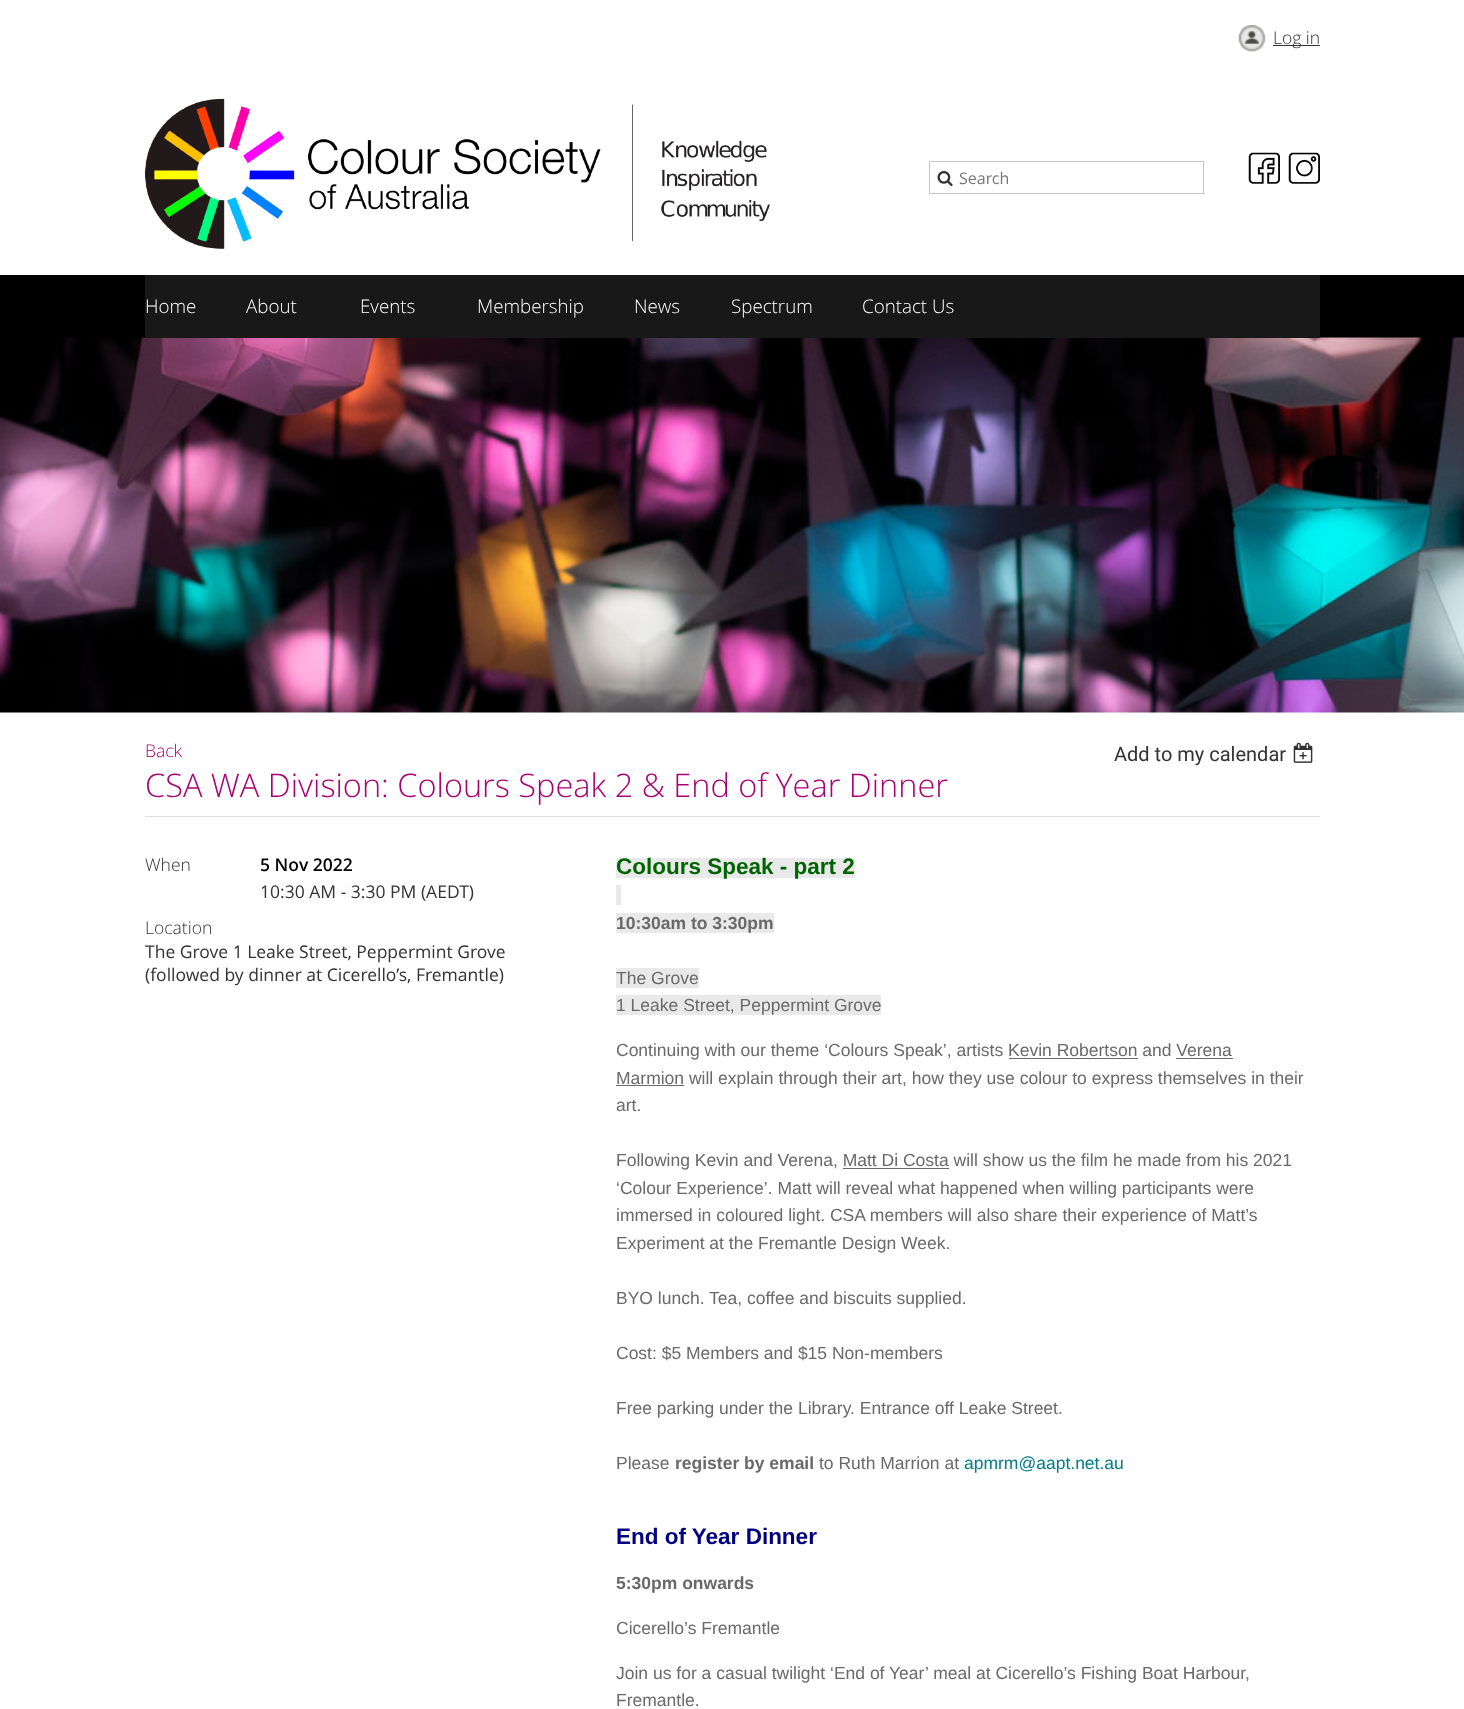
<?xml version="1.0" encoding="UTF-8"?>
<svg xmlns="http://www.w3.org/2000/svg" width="1464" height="1709">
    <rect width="100%" height="100%" fill="#FFFFFF"/>
    <image x="1238" y="25" width="28" height="27" href="img_01.png"/>
    <rect x="1273" y="45" width="47" height="1" fill="#333333"/>
    <text x="1273" y="44" font-family="Open Sans" font-size="17.5" font-weight="300" fill="#333333">Log in</text>
    <image x="145" y="98" width="625" height="151" href="img_02.png"/>
    <rect x="929.5" y="161.5" width="274" height="32" fill="none" stroke="#C6C6C6"/>
    <image x="937" y="171" width="16" height="16" href="img_03.png"/>
    <text x="959" y="184" font-family="Open Sans" font-size="16" fill="#757575">Search</text>
    <image x="1248" y="152" width="32" height="32" href="img_04.png"/>
    <image x="1288" y="152" width="32" height="32" href="img_05.png"/>
    <rect x="0" y="275" width="1464" height="63" fill="#000000"/>
    <image x="0" y="337" width="1464" height="376" href="img_06.png"/>
    <rect x="145" y="275" width="1175" height="63" fill="#171817"/>
    <text x="145" y="313" font-family="Open Sans" font-size="18.75" font-weight="300" fill="#FFFFFF">Home</text>
    <text x="246" y="313" font-family="Open Sans" font-size="18.75" font-weight="300" fill="#FFFFFF">About</text>
    <text x="360" y="313" font-family="Open Sans" font-size="18.75" font-weight="300" fill="#FFFFFF">Events</text>
    <text x="477" y="313" font-family="Open Sans" font-size="18.75" font-weight="300" fill="#FFFFFF">Membership</text>
    <text x="634" y="313" font-family="Open Sans" font-size="18.75" font-weight="300" fill="#FFFFFF">News</text>
    <text x="731" y="313" font-family="Open Sans" font-size="18.75" font-weight="300" fill="#FFFFFF">Spectrum</text>
    <text x="862" y="313" font-family="Open Sans" font-size="18.75" font-weight="300" fill="#FFFFFF">Contact Us</text>
    <text x="145" y="757" font-family="Open Sans" font-size="17.5" font-weight="300" fill="#A90072">Back</text>
    <text x="1114" y="761" font-family="Roboto" font-size="20" fill="#333333">Add to my calendar</text>
    <image x="1293" y="742" width="20" height="21" href="img_07.png"/>
    <rect x="145" y="816" width="1175" height="1" fill="#DDDDDD"/>
    <text x="145" y="797" font-family="Open Sans" font-size="32.5" font-weight="300" fill="#A90072">CSA WA Division: Colours Speak 2 &amp; End of Year Dinner</text>
    <text x="145" y="871" font-family="Open Sans" font-size="17.5" font-weight="300" fill="#333333">When</text>
    <text x="260" y="871" font-family="Open Sans" font-size="17.5" font-weight="600" fill="#000000">5 Nov 2022</text>
    <text x="260" y="898" font-family="Open Sans" font-size="17.5" fill="#333333">10:30 AM - 3:30 PM (AEDT)</text>
    <text x="145" y="934" font-family="Open Sans" font-size="17.5" font-weight="300" fill="#333333">Location</text>
    <text font-family="Open Sans" font-size="17.5" fill="#333333">
        <tspan x="145" y="958">The Grove 1 Leake Street, Peppermint Grove</tspan>
        <tspan x="145" y="981">(followed by dinner at Cicerello’s, Fremantle)</tspan>
    </text>
    <rect x="616" y="858" width="239" height="20" fill="#E9E9E9"/>
    <text x="616" y="874" font-family="Liberation Sans" font-size="22.5" font-weight="700" fill="#006400">Colours Speak - part 2</text>
    <rect x="616" y="885" width="5" height="20" fill="#E9E9E9"/>
    <rect x="616" y="913" width="158" height="20" fill="#E9E9E9"/>
    <text x="616" y="929" font-family="Liberation Sans" font-size="17.5" font-weight="700" fill="#696969">10:30am to 3:30pm</text>
    <rect x="616" y="968" width="83" height="20" fill="#E9E9E9"/>
    <text x="616" y="984" font-family="Liberation Sans" font-size="17.5" fill="#696969">The Grove</text>
    <rect x="616" y="995" width="265" height="20" fill="#E9E9E9"/>
    <text x="616" y="1011" font-family="Liberation Sans" font-size="17.5" fill="#696969">1 Leake Street, Peppermint Grove</text>
    <text x="616" y="1056" font-family="Liberation Sans" font-size="17.5" fill="#696969">Continuing with our theme ‘Colours Speak’, artists Kevin Robertson and Verena</text>
    <rect x="1009" y="1058" width="129" height="1" fill="#696969"/>
    <rect x="1176" y="1058" width="57" height="1" fill="#696969"/>
    <rect x="616" y="1085" width="68" height="1" fill="#696969"/>
    <text font-family="Liberation Sans" font-size="17.5" fill="#696969">
        <tspan x="616" y="1084">Marmion will explain through their art, how they use colour to express themselves in their</tspan>
        <tspan x="616" y="1111">art.</tspan>
    </text>
    <text x="616" y="1166" font-family="Liberation Sans" font-size="17.5" fill="#696969">Following Kevin and Verena, Matt Di Costa will show us the film he made from his 2021</text>
    <rect x="843" y="1168" width="106" height="1" fill="#696969"/>
    <text font-family="Liberation Sans" font-size="17.5" fill="#696969">
        <tspan x="616" y="1194">‘Colour Experience’. Matt will reveal what happened when willing participants were</tspan>
        <tspan x="616" y="1221">immersed in coloured light. CSA members will also share their experience of Matt’s</tspan>
        <tspan x="616" y="1249">Experiment at the Fremantle Design Week.</tspan>
    </text>
    <text x="616" y="1304" font-family="Liberation Sans" font-size="17.5" fill="#696969">BYO lunch. Tea, coffee and biscuits supplied.</text>
    <text x="616" y="1359" font-family="Liberation Sans" font-size="17.5" fill="#696969">Cost: $5 Members and $15 Non-members</text>
    <text x="616" y="1414" font-family="Liberation Sans" font-size="17.5" fill="#696969">Free parking under the Library. Entrance off Leake Street.</text>
    <text x="616" y="1469" font-family="Liberation Sans" font-size="17.5" fill="#696969">Please</text>
    <text x="675" y="1469" font-family="Liberation Sans" font-size="17.5" font-weight="700" fill="#696969">register by email</text>
    <text x="819" y="1469" font-family="Liberation Sans" font-size="17.5" fill="#696969">to Ruth Marrion at</text>
    <text x="964" y="1469" font-family="Liberation Sans" font-size="17.5" fill="#007C89">apmrm@aapt.net.au</text>
    <text x="616" y="1544" font-family="Liberation Sans" font-size="22.5" font-weight="700" fill="#000080">End of Year Dinner</text>
    <text x="616" y="1589" font-family="Liberation Sans" font-size="17.5" font-weight="700" fill="#696969">5:30pm onwards</text>
    <text x="616" y="1634" font-family="Liberation Sans" font-size="17.5" fill="#696969">Cicerello’s Fremantle</text>
    <text font-family="Liberation Sans" font-size="17.5" fill="#696969">
        <tspan x="616" y="1679">Join us for a casual twilight ‘End of Year’ meal at Cicerello’s Fishing Boat Harbour,</tspan>
        <tspan x="616" y="1706">Fremantle.</tspan>
    </text>
</svg>
